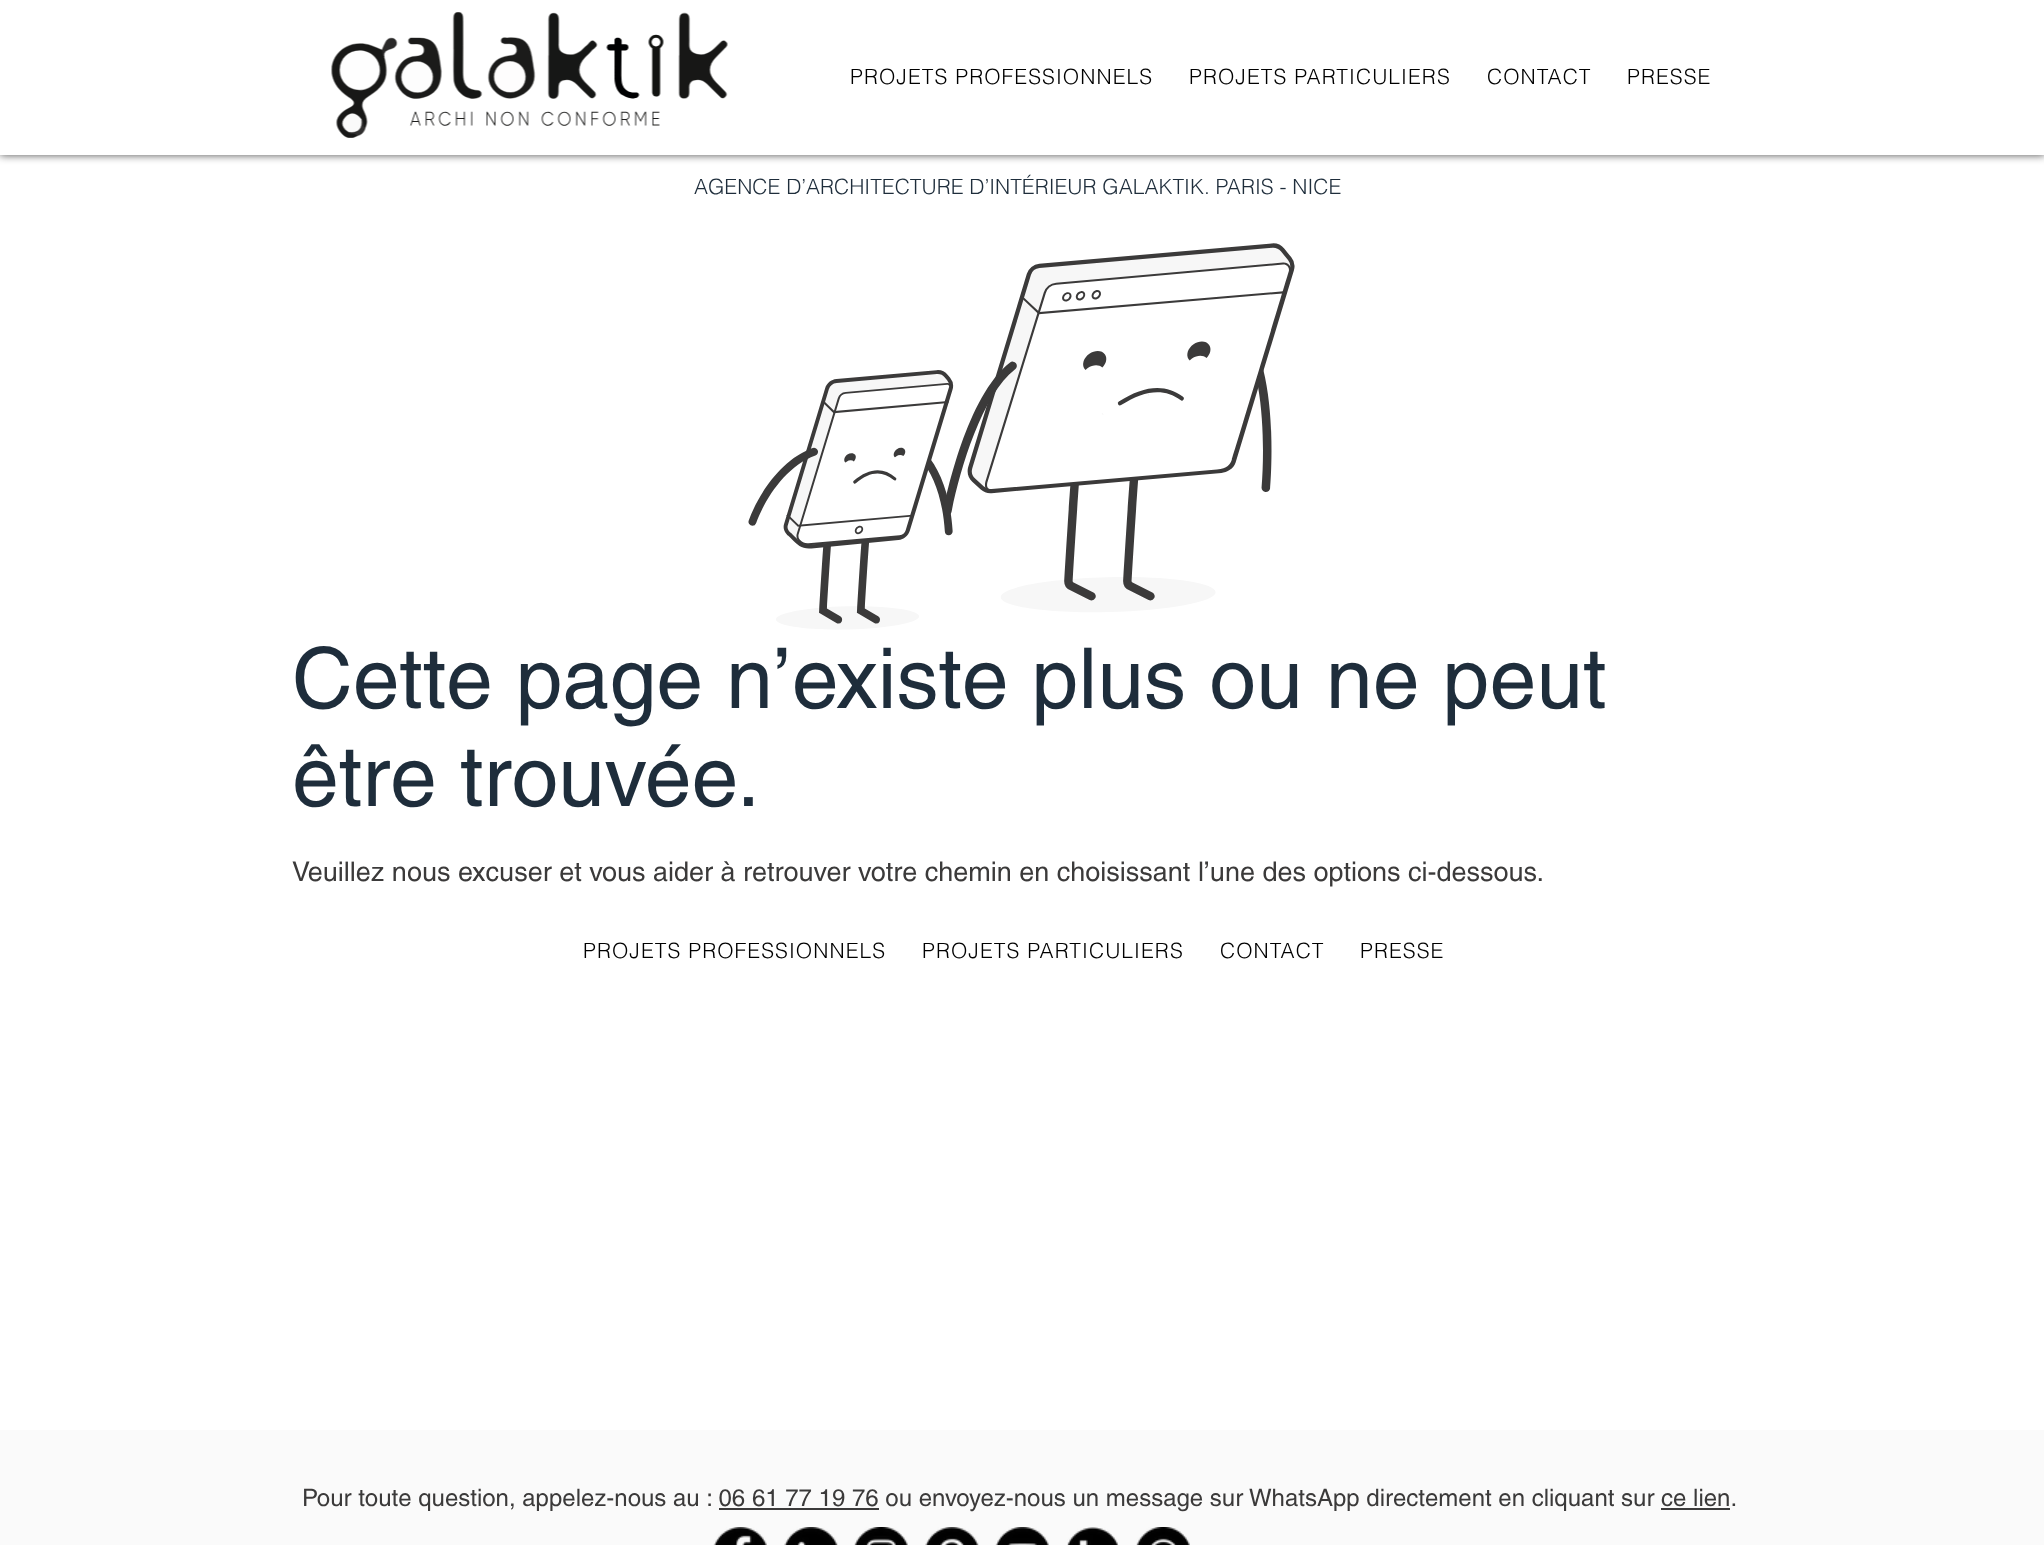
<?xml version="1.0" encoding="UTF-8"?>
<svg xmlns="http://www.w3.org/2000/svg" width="2044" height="1545">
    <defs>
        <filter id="blur1" x="-50%" y="-200%" width="200%" height="500%"><feGaussianBlur stdDeviation="4"/></filter>
    </defs>
    <rect width="100%" height="100%" fill="#FFFFFF"/>
    <rect x="0" y="0" width="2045" height="155" fill="#000000" fill-opacity="0.7" filter="url(#blur1)"/>
    <rect x="0" y="0" width="2044" height="155" fill="#FFFFFF"/>
    <image x="331" y="12" width="397" height="126" href="img_01.png"/>
    <text x="850" y="84" font-family="helvetica" font-size="21" font-weight="300" letter-spacing="1.05" fill="#000000">PROJETS PROFESSIONNELS</text>
    <text x="1189" y="84" font-family="helvetica" font-size="21" font-weight="300" letter-spacing="1.05" fill="#000000">PROJETS PARTICULIERS</text>
    <text x="1487" y="84" font-family="helvetica" font-size="21" font-weight="300" letter-spacing="1.05" fill="#000000">CONTACT</text>
    <text x="1627" y="84" font-family="helvetica" font-size="21" font-weight="300" letter-spacing="1.05" fill="#000000">PRESSE</text>
    <text x="694" y="194" font-family="helvetica" font-size="21" font-weight="300" fill="#1E2D3B">AGENCE D’ARCHITECTURE D’INTÉRIEUR GALAKTIK. PARIS - NICE</text>
    <image x="748" y="243" width="547" height="387" href="img_02.png"/>
    <text font-family="helvetica" font-size="84" fill="#1E2D3B">
        <tspan x="292" y="708">Cette page n’existe plus ou ne peut</tspan>
        <tspan x="292" y="806">être trouvée.</tspan>
    </text>
    <text x="292" y="881" font-family="helvetica" font-size="27" fill="#3B3A3A">Veuillez nous excuser et vous aider à retrouver votre chemin en choisissant l’une des options ci-dessous.</text>
    <text x="583" y="958" font-family="helvetica" font-size="21" font-weight="300" letter-spacing="1.05" fill="#000000">PROJETS PROFESSIONNELS</text>
    <text x="922" y="958" font-family="helvetica" font-size="21" font-weight="300" letter-spacing="1.05" fill="#000000">PROJETS PARTICULIERS</text>
    <text x="1220" y="958" font-family="helvetica" font-size="21" font-weight="300" letter-spacing="1.05" fill="#000000">CONTACT</text>
    <text x="1360" y="958" font-family="helvetica" font-size="21" font-weight="300" letter-spacing="1.05" fill="#000000">PRESSE</text>
    <rect x="0" y="1430" width="2044" height="115" fill="#FAFAFA"/>
    <text x="302" y="1506" font-family="helvetica" font-size="24" fill="#3B3A3A">Pour toute question, appelez-nous au : 06 61 77 19 76 ou envoyez-nous un message sur WhatsApp directement en cliquant sur ce lien.</text>
    <rect x="719" y="1508" width="160" height="2" fill="#3B3A3A"/>
    <rect x="1661" y="1508" width="69" height="2" fill="#3B3A3A"/>
    <image x="713" y="1527" width="54" height="18" href="img_03.png"/>
    <image x="784" y="1527" width="54" height="18" href="img_04.png"/>
    <image x="854" y="1527" width="54" height="18" href="img_05.png"/>
    <image x="925" y="1527" width="54" height="18" href="img_06.png"/>
    <image x="995" y="1527" width="54" height="18" href="img_07.png"/>
    <image x="1067" y="1527" width="52" height="18" href="img_08.png"/>
    <image x="1136" y="1527" width="54" height="18" href="img_09.png"/>
</svg>
